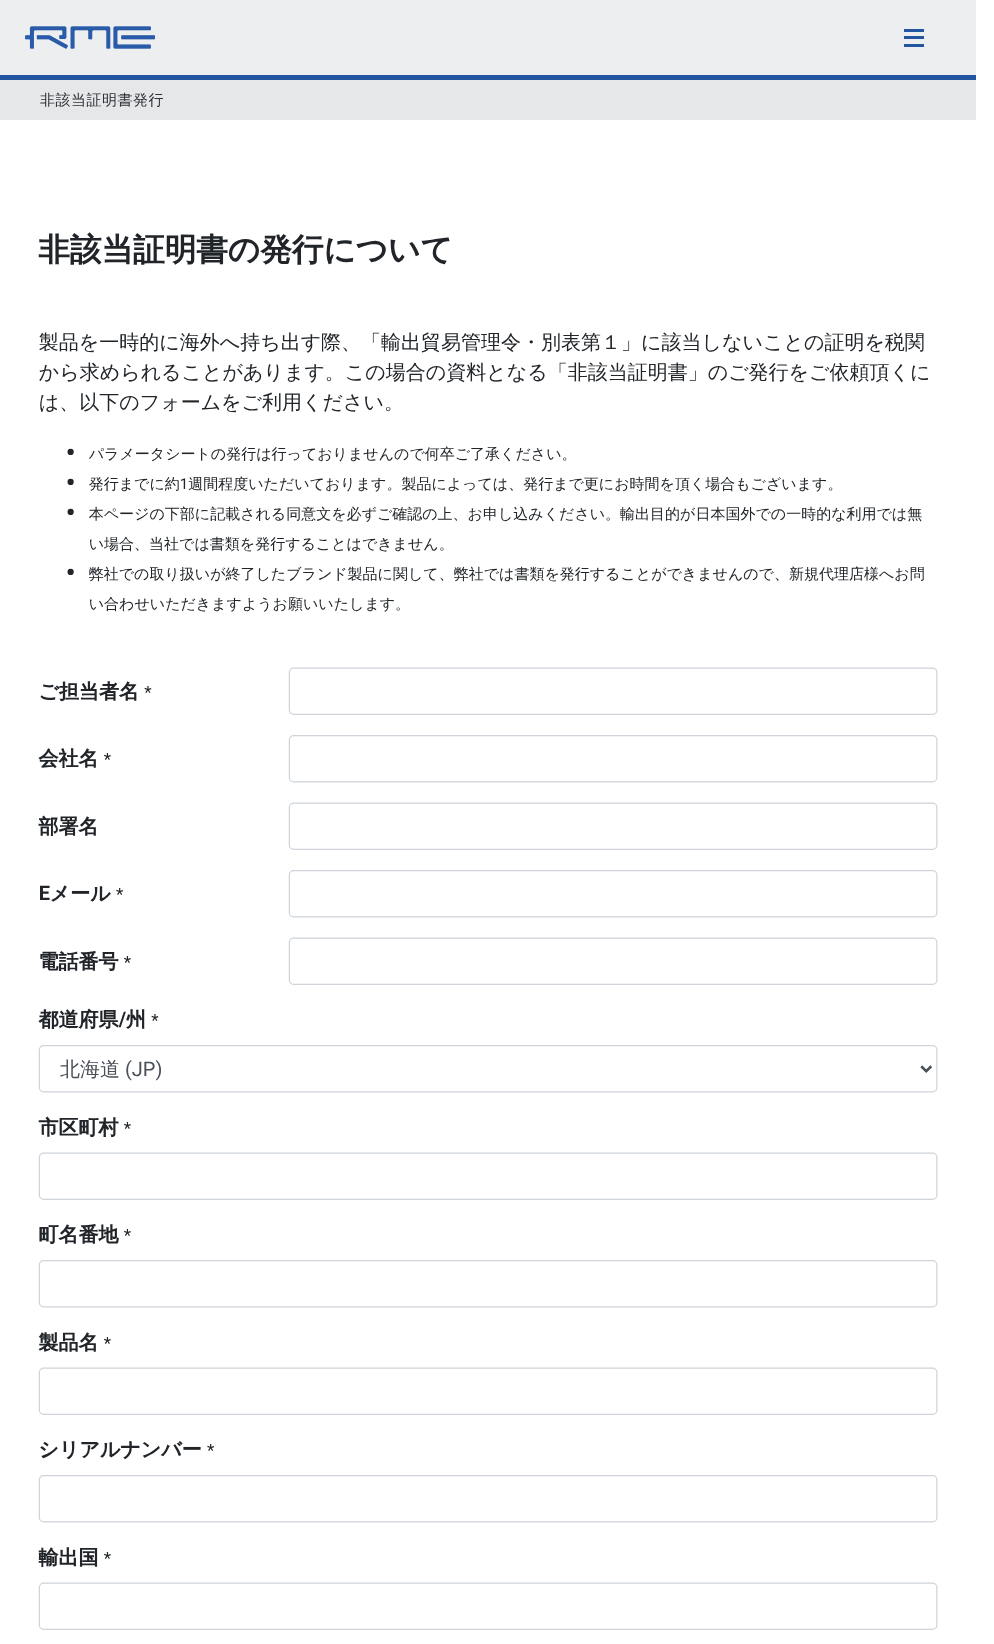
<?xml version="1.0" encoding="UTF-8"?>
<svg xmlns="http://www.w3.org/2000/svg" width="994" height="1644">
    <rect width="100%" height="100%" fill="#FFFFFF"/>
    <rect x="0" y="0" width="976" height="75" fill="#EDEEF0"/>
    <rect x="0" y="75" width="976" height="5" fill="#2255A2"/>
    <image x="25" y="26" width="130" height="23" href="img_01.png"/>
    <rect x="904" y="29" width="20" height="3" fill="#2255A2"/>
    <rect x="904" y="36" width="20" height="3" fill="#2255A2"/>
    <rect x="904" y="44" width="20" height="3" fill="#2255A2"/>
    <rect x="0" y="80" width="976" height="40" fill="#E6E7E8"/>
    <text x="40" y="105" font-family="WenQuanYi Zen Hei" font-size="15" font-weight="500" letter-spacing="0.5" fill="#303039">非該当証明書発行</text>
    <image x="38" y="232" width="900" height="1398" href="img_02.png"/>
</svg>
